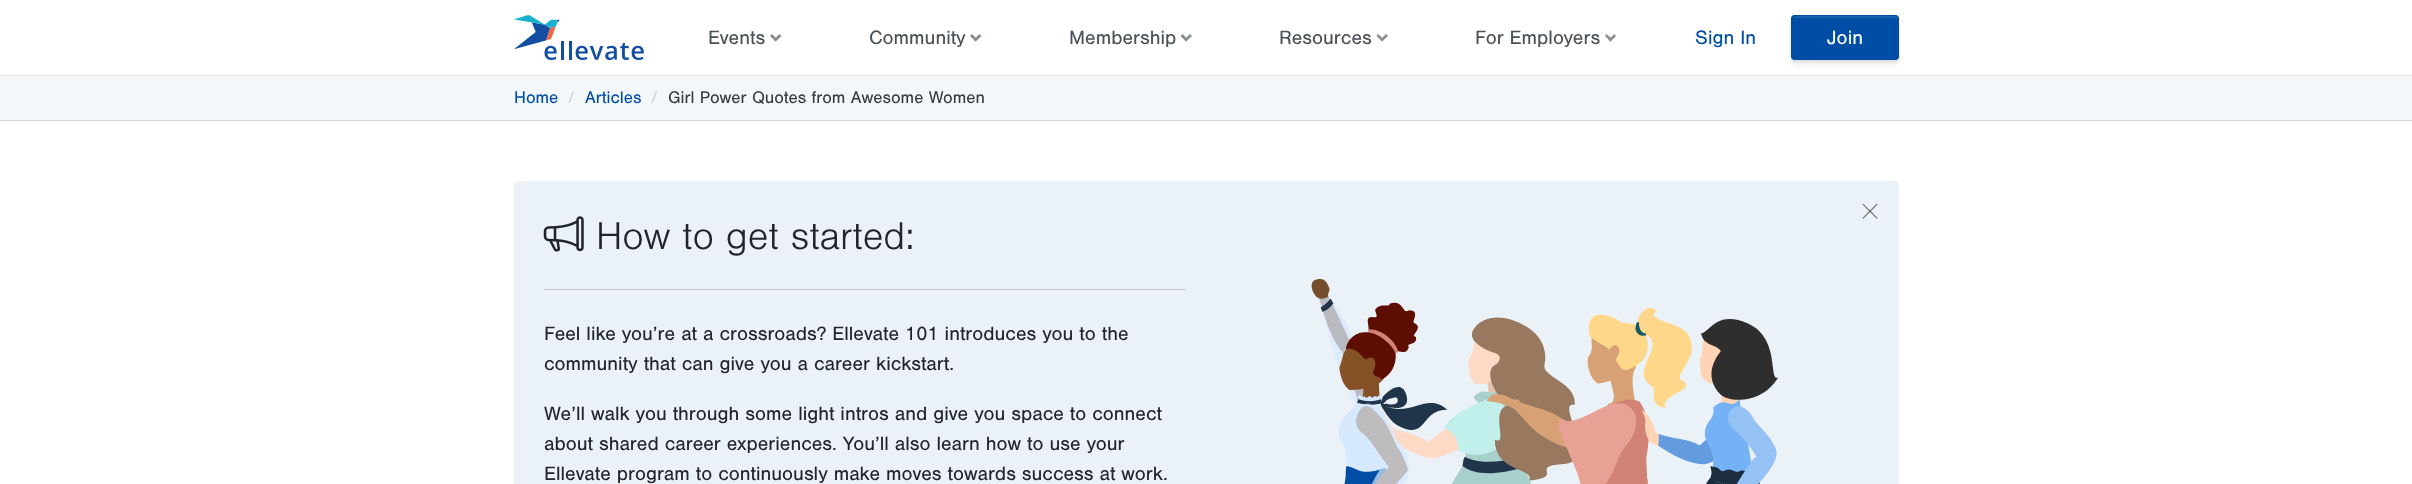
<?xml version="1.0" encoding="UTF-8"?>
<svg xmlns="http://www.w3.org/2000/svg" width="2412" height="484">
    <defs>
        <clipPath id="clip1"><rect x="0" y="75" width="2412" height="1"/></clipPath>
        <filter id="blur1" x="-50%" y="-200%" width="200%" height="500%"><feGaussianBlur stdDeviation="1"/></filter>
        <filter id="blur2" x="-50%" y="-200%" width="200%" height="500%"><feGaussianBlur stdDeviation="2.5"/></filter>
    </defs>
    <rect width="100%" height="100%" fill="#FFFFFF"/>
    <rect x="0" y="75" width="2412" height="45" fill="#F4F7F9"/>
    <g clip-path="url(#clip1)">
        <rect x="0" y="0" width="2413" height="75" fill="#000000" fill-opacity="0.25" filter="url(#blur1)"/>
    </g>
    <image x="514" y="15" width="130" height="45" href="img_01.png"/>
    <text x="708" y="44" font-family="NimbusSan" font-size="20" fill="#495057">Events</text>
    <path d="M 781.5 36 L 775.5 41.5 L 774 39.5 L 779.5 34 Z" fill="#878C90"/>
    <path d="M 777.5 39.5 L 775.5 41.5 L 770 36 L 772 34 Z" fill="#878C90"/>
    <text x="869" y="44" font-family="NimbusSan" font-size="20" fill="#495057">Community</text>
    <path d="M 981.5 36 L 975.5 41.5 L 974 39.5 L 979.5 34 Z" fill="#878C90"/>
    <path d="M 977.5 39.5 L 975.5 41.5 L 970 36 L 972 34 Z" fill="#878C90"/>
    <text x="1069" y="44" font-family="NimbusSan" font-size="20" fill="#495057">Membership</text>
    <path d="M 1192 36 L 1186 41.5 L 1184.5 39.5 L 1190 34 Z" fill="#878C90"/>
    <path d="M 1188 39.5 L 1186 41.5 L 1180.5 36 L 1182.5 34 Z" fill="#878C90"/>
    <text x="1279" y="44" font-family="NimbusSan" font-size="20" fill="#495057">Resources</text>
    <path d="M 1388 36 L 1382 41.5 L 1380.5 39.5 L 1386 34 Z" fill="#878C90"/>
    <path d="M 1384 39.5 L 1382 41.5 L 1376.5 36 L 1378 34 Z" fill="#878C90"/>
    <text x="1475" y="44" font-family="NimbusSan" font-size="20" fill="#495057">For Employers</text>
    <path d="M 1616 36 L 1610.5 41.5 L 1608.5 39.5 L 1614.5 34 Z" fill="#878C90"/>
    <path d="M 1612.5 39.5 L 1610.5 41.5 L 1605 36 L 1606.5 34 Z" fill="#878C90"/>
    <text x="1695" y="44" font-family="NimbusSan" font-size="20" fill="#004DA5">Sign In</text>
    <rect x="1791" y="20" width="108" height="45" rx="4" fill="#000000" fill-opacity="0.05" filter="url(#blur2)"/>
    <rect x="1791" y="18" width="108" height="45" rx="4" fill="#000000" fill-opacity="0.05" filter="url(#blur1)"/>
    <rect x="1791" y="16" width="108" height="45" rx="4" fill="#000000" fill-opacity="0.05" filter="url(#blur1)"/>
    <rect x="1791" y="15" width="108" height="45" rx="4" fill="#004DA5"/>
    <path d="M 1795 18 H 1895 C 1896 18 1898 19 1898 20 V 18 C 1898 17 1897 16 1896 16 H 1796 C 1794 16 1793 17 1793 18 Z" fill="#1A5FAE"/>
    <rect x="1791.5" y="15.5" width="107" height="44" rx="3.5" fill="none" stroke="#004DA5"/>
    <text x="1827" y="44" font-family="NimbusSan" font-size="20" fill="#FFFFFF">Join</text>
    <rect x="0" y="120" width="2412" height="1" fill="#CED1D4"/>
    <text x="514" y="103" font-family="NimbusSan" font-size="17.5" fill="#004DA5">Home</text>
    <text x="568" y="103" font-family="NimbusSan" font-size="17.5" fill="#CED1D4">/</text>
    <text x="585" y="103" font-family="NimbusSan" font-size="17.5" fill="#004DA5">Articles</text>
    <text x="651" y="103" font-family="NimbusSan" font-size="17.5" fill="#CED1D4">/</text>
    <text x="668" y="103" font-family="NimbusSan" font-size="17.5" fill="#343A40">Girl Power Quotes from Awesome Women</text>
    <rect x="514" y="181" width="1385" height="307" rx="4" fill="#EBF2F7"/>
    <image x="1862" y="203" width="16" height="16" href="img_02.png"/>
    <image x="543" y="216" width="41" height="36" href="img_03.png"/>
    <text x="596" y="249" font-family="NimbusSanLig" font-size="40" fill="#212529">How to get started:</text>
    <rect x="544" y="289" width="642" height="1" fill="#C3C9CE"/>
    <text font-family="NimbusSan" font-size="20" fill="#212529">
        <tspan x="544" y="340">Feel like you’re at a crossroads? Ellevate 101 introduces you to the</tspan>
        <tspan x="544" y="370">community that can give you a career kickstart.</tspan>
    </text>
    <text font-family="NimbusSan" font-size="20" fill="#212529">
        <tspan x="544" y="420">We’ll walk you through some light intros and give you space to connect</tspan>
        <tspan x="544" y="450">about shared career experiences. You’ll also learn how to use your</tspan>
        <tspan x="544" y="480">Ellevate program to continuously make moves towards success at work.</tspan>
    </text>
    <image x="1311" y="279" width="467" height="205" href="img_04.png"/>
</svg>
